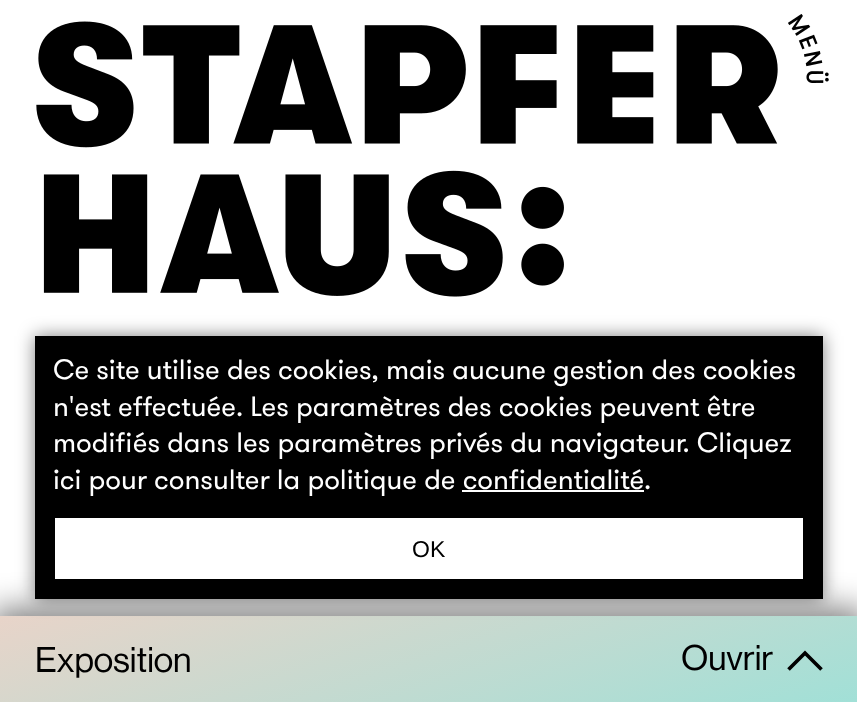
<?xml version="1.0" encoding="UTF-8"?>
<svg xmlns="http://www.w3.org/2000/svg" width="857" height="702">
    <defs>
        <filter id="blur1" x="-50%" y="-200%" width="200%" height="500%"><feGaussianBlur stdDeviation="16"/></filter>
        <linearGradient id="g1" gradientUnits="userSpaceOnUse" x1="375" y1="494" x2="483" y2="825"><stop offset="0" stop-color="#E8D4C9"/><stop offset="1" stop-color="#A1E0D7"/></linearGradient>
        <filter id="blur2" x="-50%" y="-200%" width="200%" height="500%"><feGaussianBlur stdDeviation="9"/></filter>
    </defs>
    <rect width="100%" height="100%" fill="#FFFFFF"/>
    <image x="36" y="21" width="742" height="276" href="img_01.png"/>
    <image x="788" y="14" width="41" height="69" href="img_02.png"/>
    <rect x="-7" y="609" width="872" height="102" fill="#000000" fill-opacity="0.52" filter="url(#blur1)"/>
    <rect x="0" y="616" width="857" height="86" fill="url(#g1)"/>
    <rect x="35" y="336" width="788" height="263" fill="#000000" fill-opacity="0.5" filter="url(#blur2)"/>
    <rect x="35" y="336" width="788" height="263" fill="#000000"/>
    <text font-family="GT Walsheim" font-size="28" fill="#FFFFFF">
        <tspan x="53" y="379">Ce site utilise des cookies, mais aucune gestion des cookies</tspan>
        <tspan x="53" y="416">n'est effectuée. Les paramètres des cookies peuvent être</tspan>
        <tspan x="53" y="452">modifiés dans les paramètres privés du navigateur. Cliquez</tspan>
        <tspan x="53" y="489">ici pour consulter la politique de confidentialité.</tspan>
    </text>
    <rect x="462" y="490" width="182" height="2" fill="#FFFFFF"/>
    <rect x="55" y="518" width="748" height="61" fill="#FFFFFF"/>
    <text x="412" y="557" font-family="Liberation Sans" font-size="23" fill="#000000">OK</text>
    <text x="35" y="672" font-family="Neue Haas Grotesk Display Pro" font-size="35" font-weight="500" fill="#000000">Exposition</text>
    <text x="681" y="670" font-family="Neue Haas Grotesk Display Pro" font-size="35" font-weight="500" fill="#000000">Ouvrir</text>
    <path d="M 788.5 669.5 L 805 653 L 821.5 669.5" fill="none" stroke="#000000" stroke-width="3.7"/>
</svg>
